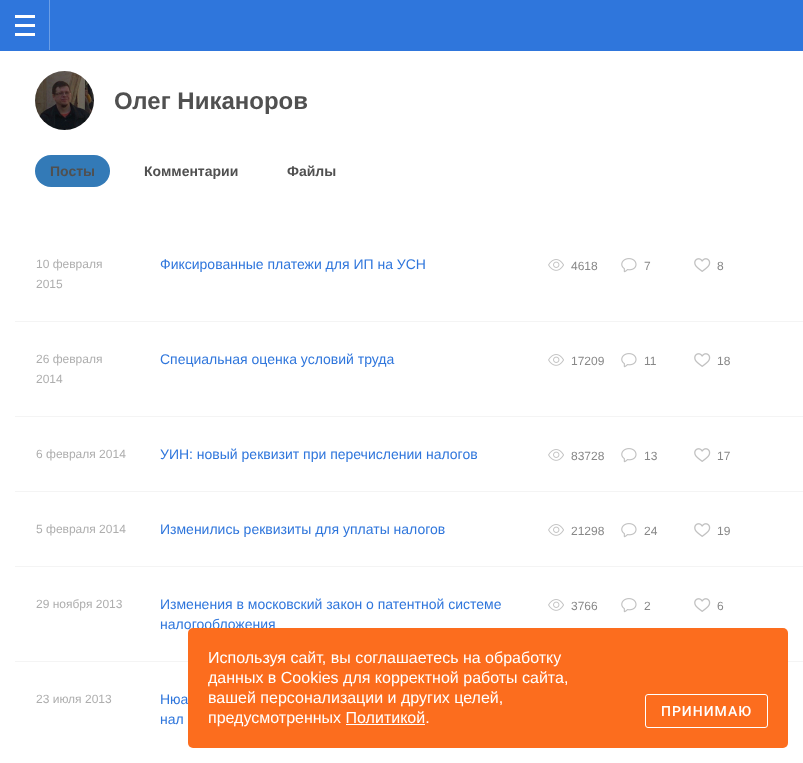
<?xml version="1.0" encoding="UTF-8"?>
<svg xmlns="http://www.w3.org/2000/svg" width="803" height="763">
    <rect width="100%" height="100%" fill="#FFFFFF"/>
    <rect x="0" y="0" width="803" height="51" fill="#2F76DC"/>
    <rect x="49" y="0" width="1" height="50" fill="#6B9EE6"/>
    <rect x="15" y="15" width="20" height="3" fill="#FFFFFF"/>
    <rect x="15" y="24" width="20" height="3" fill="#FFFFFF"/>
    <rect x="15" y="33" width="20" height="3" fill="#FFFFFF"/>
    <image x="35" y="71" width="59" height="59" href="img_01.png"/>
    <text x="114" y="109" font-family="Liberation Sans" font-size="24" font-weight="700" fill="#505050">Олег Никаноров</text>
    <rect x="35" y="155" width="75" height="32" rx="16" fill="#337AB7"/>
    <text x="50" y="176" font-family="Liberation Sans" font-size="14" font-weight="700" fill="#505050">Посты</text>
    <text x="144" y="176" font-family="Liberation Sans" font-size="14" font-weight="700" fill="#505050">Комментарии</text>
    <text x="287" y="176" font-family="Liberation Sans" font-size="14" font-weight="700" fill="#505050">Файлы</text>
    <rect x="15" y="321" width="788" height="1" fill="#F4F4F4"/>
    <text font-family="Liberation Sans" font-size="12" fill="#AEAEAE">
        <tspan x="36" y="268">10 февраля</tspan>
        <tspan x="36" y="288">2015</tspan>
    </text>
    <text x="160" y="269" font-family="Liberation Sans" font-size="14" fill="#2F76DC">Фиксированные платежи для ИП на УСН</text>
    <image x="548" y="259" width="16" height="12" href="img_02.png"/>
    <text x="571" y="270" font-family="Liberation Sans" font-size="12" fill="#888888">4618</text>
    <image x="621" y="258" width="16" height="15" href="img_03.png"/>
    <text x="644" y="270" font-family="Liberation Sans" font-size="12" fill="#888888">7</text>
    <image x="694" y="258" width="17" height="14" href="img_04.png"/>
    <text x="717" y="270" font-family="Liberation Sans" font-size="12" fill="#888888">8</text>
    <rect x="15" y="416" width="788" height="1" fill="#F4F4F4"/>
    <text font-family="Liberation Sans" font-size="12" fill="#AEAEAE">
        <tspan x="36" y="363">26 февраля</tspan>
        <tspan x="36" y="383">2014</tspan>
    </text>
    <text x="160" y="364" font-family="Liberation Sans" font-size="14" fill="#2F76DC">Специальная оценка условий труда</text>
    <image x="548" y="354" width="16" height="12" href="img_02.png"/>
    <text x="571" y="365" font-family="Liberation Sans" font-size="12" fill="#888888">17209</text>
    <image x="621" y="353" width="16" height="15" href="img_03.png"/>
    <text x="644" y="365" font-family="Liberation Sans" font-size="12" fill="#888888">11</text>
    <image x="694" y="353" width="17" height="14" href="img_04.png"/>
    <text x="717" y="365" font-family="Liberation Sans" font-size="12" fill="#888888">18</text>
    <rect x="15" y="491" width="788" height="1" fill="#F4F4F4"/>
    <text x="36" y="458" font-family="Liberation Sans" font-size="12" fill="#AEAEAE">6 февраля 2014</text>
    <text x="160" y="459" font-family="Liberation Sans" font-size="14" fill="#2F76DC">УИН: новый реквизит при перечислении налогов</text>
    <image x="548" y="449" width="16" height="12" href="img_02.png"/>
    <text x="571" y="460" font-family="Liberation Sans" font-size="12" fill="#888888">83728</text>
    <image x="621" y="448" width="16" height="15" href="img_03.png"/>
    <text x="644" y="460" font-family="Liberation Sans" font-size="12" fill="#888888">13</text>
    <image x="694" y="448" width="17" height="14" href="img_04.png"/>
    <text x="717" y="460" font-family="Liberation Sans" font-size="12" fill="#888888">17</text>
    <rect x="15" y="566" width="788" height="1" fill="#F4F4F4"/>
    <text x="36" y="533" font-family="Liberation Sans" font-size="12" fill="#AEAEAE">5 февраля 2014</text>
    <text x="160" y="534" font-family="Liberation Sans" font-size="14" fill="#2F76DC">Изменились реквизиты для уплаты налогов</text>
    <image x="548" y="524" width="16" height="12" href="img_02.png"/>
    <text x="571" y="535" font-family="Liberation Sans" font-size="12" fill="#888888">21298</text>
    <image x="621" y="523" width="16" height="15" href="img_03.png"/>
    <text x="644" y="535" font-family="Liberation Sans" font-size="12" fill="#888888">24</text>
    <image x="694" y="523" width="17" height="14" href="img_04.png"/>
    <text x="717" y="535" font-family="Liberation Sans" font-size="12" fill="#888888">19</text>
    <rect x="15" y="661" width="788" height="1" fill="#F4F4F4"/>
    <text x="36" y="608" font-family="Liberation Sans" font-size="12" fill="#AEAEAE">29 ноября 2013</text>
    <text font-family="Liberation Sans" font-size="14" fill="#2F76DC">
        <tspan x="160" y="609">Изменения в московский закон о патентной системе</tspan>
        <tspan x="160" y="629">налогообложения</tspan>
    </text>
    <image x="548" y="599" width="16" height="12" href="img_02.png"/>
    <text x="571" y="610" font-family="Liberation Sans" font-size="12" fill="#888888">3766</text>
    <image x="621" y="598" width="16" height="15" href="img_03.png"/>
    <text x="644" y="610" font-family="Liberation Sans" font-size="12" fill="#888888">2</text>
    <image x="694" y="598" width="17" height="14" href="img_04.png"/>
    <text x="717" y="610" font-family="Liberation Sans" font-size="12" fill="#888888">6</text>
    <text x="36" y="703" font-family="Liberation Sans" font-size="12" fill="#AEAEAE">23 июля 2013</text>
    <text font-family="Liberation Sans" font-size="14" fill="#2F76DC">
        <tspan x="160" y="704">Нюа</tspan>
        <tspan x="160" y="724">нал</tspan>
    </text>
    <rect x="188" y="628" width="600" height="120" rx="5" fill="#FC6D1E"/>
    <text font-family="Liberation Sans" font-size="16" fill="#FFFFFF">
        <tspan x="208" y="663">Используя сайт, вы соглашаетесь на обработку</tspan>
        <tspan x="208" y="683">данных в Cookies для корректной работы сайта,</tspan>
        <tspan x="208" y="703">вашей персонализации и других целей,</tspan>
        <tspan x="208" y="723">предусмотренных Политикой.</tspan>
    </text>
    <rect x="346" y="724" width="79" height="1" fill="#FFFFFF"/>
    <rect x="645.5" y="694.5" width="122" height="33" rx="2.5" fill="none" stroke="#FFFFFF"/>
    <text x="661" y="716" font-family="Roboto" font-size="14" font-weight="500" letter-spacing="1" fill="#FFFFFF">ПРИНИМАЮ</text>
</svg>
